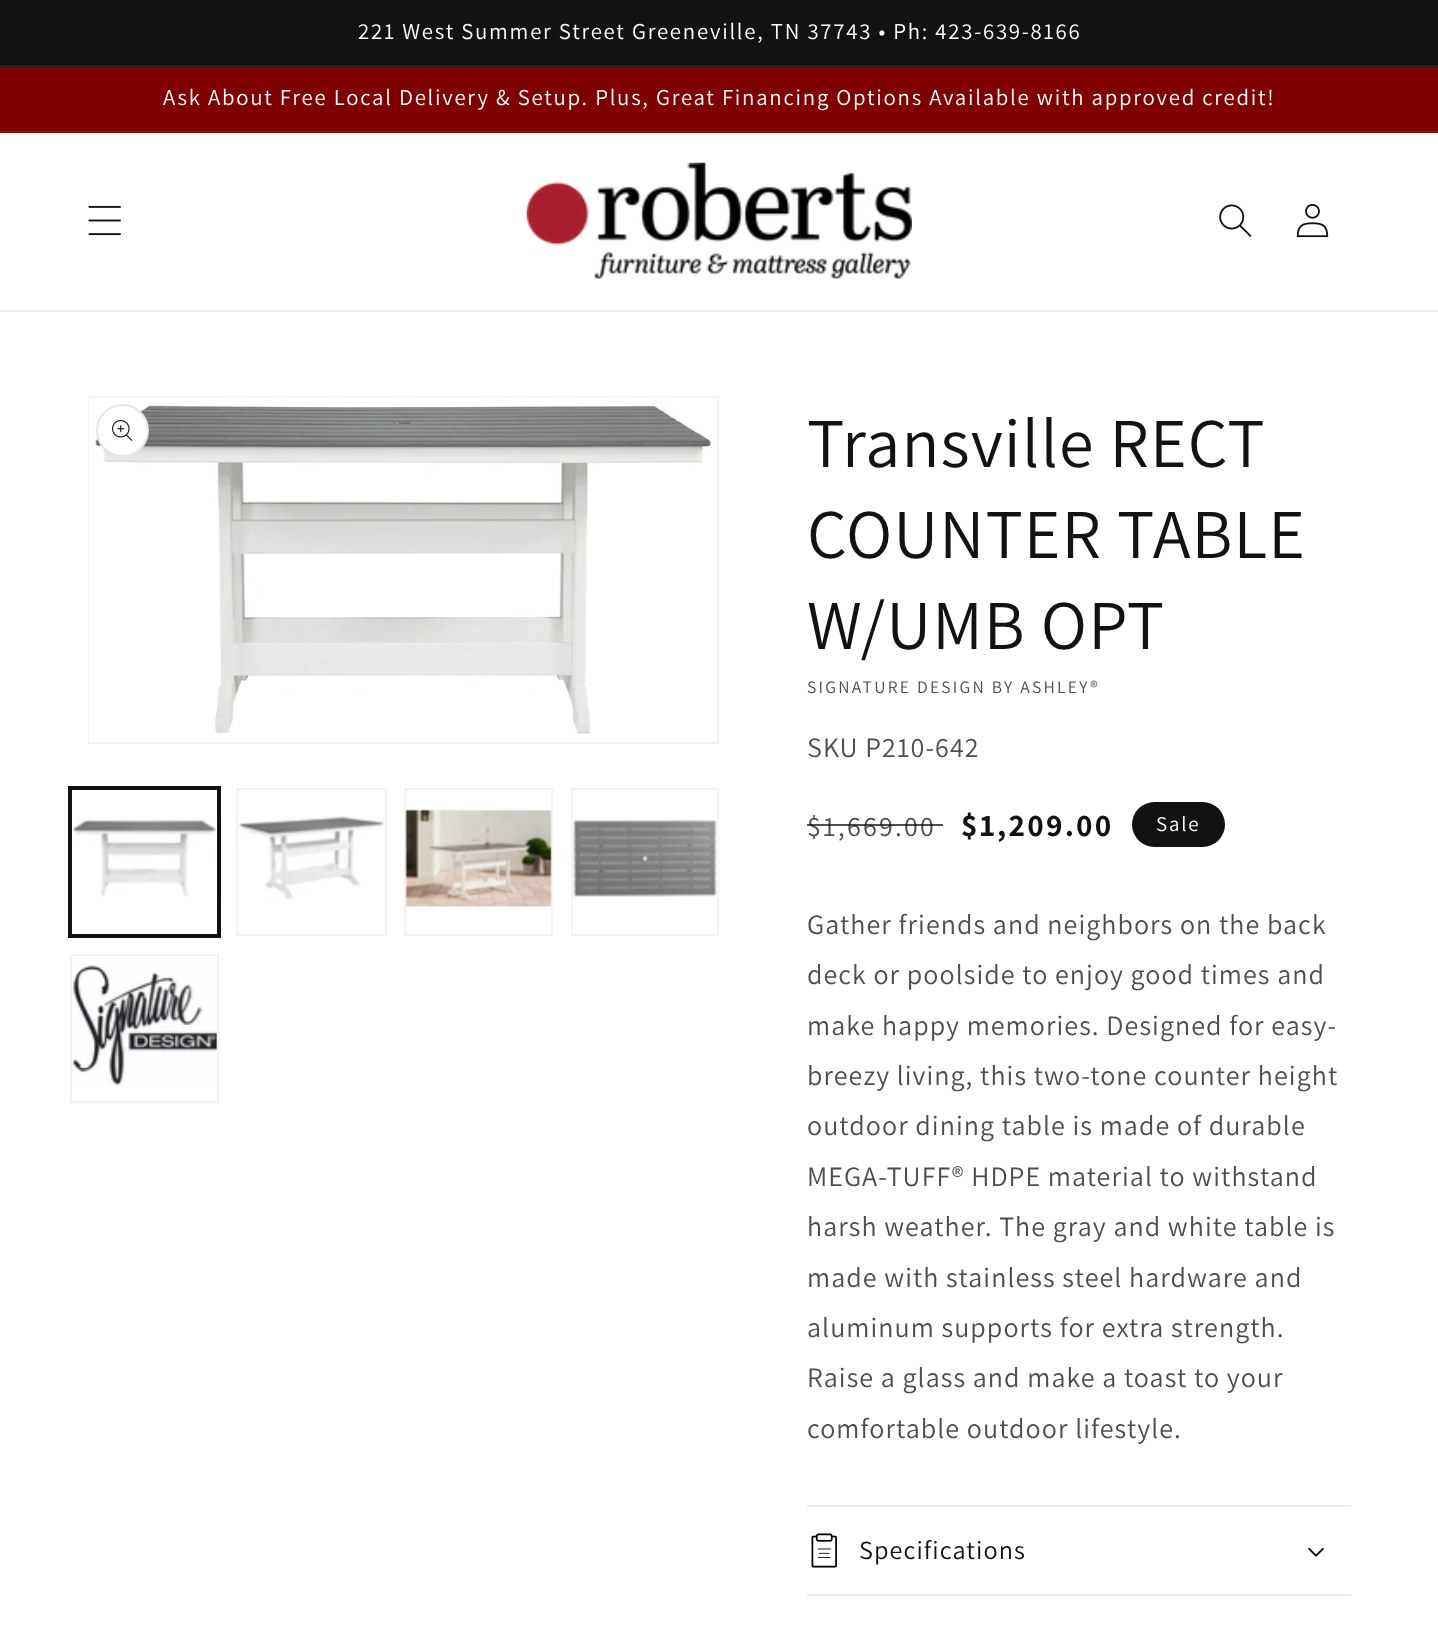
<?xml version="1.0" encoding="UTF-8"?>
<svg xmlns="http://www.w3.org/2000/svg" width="1438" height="1646">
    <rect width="100%" height="100%" fill="#FFFFFF"/>
    <rect x="0" y="0" width="1438" height="65" fill="#121212"/>
    <rect x="0" y="65" width="1438" height="2" fill="#252525"/>
    <text x="358" y="39" font-family="Assistant" font-size="22.75" letter-spacing="1.75" fill="#FFFFFF">221 West Summer Street Greeneville, TN 37743 • Ph: 423-639-8166</text>
    <rect x="0" y="67" width="1438" height="64" fill="#800000"/>
    <rect x="0" y="131" width="1438" height="2" fill="#8A1414"/>
    <text x="163" y="105" font-family="Assistant" font-size="22.75" letter-spacing="1.75" fill="#FFFFFF">Ask About Free Local Delivery &amp; Setup. Plus, Great Financing Options Available with approved credit!</text>
    <rect x="0" y="310" width="1438" height="2" fill="#ECECEC"/>
    <image x="88" y="205" width="33" height="31" href="img_01.png"/>
    <image x="526" y="162" width="386" height="117" href="img_02.png"/>
    <image x="1219" y="204" width="33" height="33" href="img_03.png"/>
    <image x="1296" y="203" width="33" height="35" href="img_04.png"/>
    <rect x="89" y="397" width="629" height="346" fill="none" stroke="#F3F3F3" stroke-width="2"/>
    <image x="89" y="397" width="629" height="345" href="img_05.png"/>
    <circle cx="122.5" cy="430.5" r="26.5" fill="#FFFFFF"/>
    <circle cx="122.5" cy="430.5" r="25.5" fill="none" stroke="#121212" stroke-opacity="0.1" stroke-width="2"/>
    <image x="112" y="420" width="21" height="21" href="img_06.png"/>
    <rect x="69" y="787" width="151" height="150" fill="none" stroke="#121212" stroke-width="2"/>
    <rect x="71" y="789" width="147" height="146" fill="none" stroke="#121212" stroke-width="2"/>
    <image x="72" y="819" width="146" height="79" href="img_07.png"/>
    <rect x="237" y="789" width="149" height="146" fill="none" stroke="#F3F3F3" stroke-width="2"/>
    <image x="239" y="816" width="145" height="84" href="img_08.png"/>
    <rect x="405" y="789" width="147" height="146" fill="none" stroke="#F3F3F3" stroke-width="2"/>
    <image x="405" y="809" width="147" height="98" href="img_09.png"/>
    <rect x="572" y="789" width="146" height="146" fill="none" stroke="#F3F3F3" stroke-width="2"/>
    <image x="572" y="819" width="146" height="79" href="img_10.png"/>
    <rect x="71" y="955" width="147" height="147" fill="none" stroke="#F3F3F3" stroke-width="2"/>
    <image x="72" y="965" width="145" height="121" href="img_11.png"/>
    <text font-family="Assistant" font-size="70" letter-spacing="1.05" fill="#121212">
        <tspan x="807" y="467">Transville RECT</tspan>
        <tspan x="807" y="558">COUNTER TABLE</tspan>
        <tspan x="807" y="649">W/UMB OPT</tspan>
    </text>
    <text x="807" y="693" font-family="Assistant" font-size="17.5" letter-spacing="2.25" fill="#4D4D4D">SIGNATURE DESIGN BY ASHLEY®</text>
    <text x="807" y="757" font-family="Assistant" font-size="28" letter-spacing="1.05" fill="#4D4D4D">SKU P210-642</text>
    <text x="807" y="836" font-family="Assistant" font-size="28" letter-spacing="2.25" fill="#4D4D4D">$1,669.00</text>
    <rect x="807" y="824" width="136" height="2" fill="#121212" fill-opacity="0.75"/>
    <text x="961" y="836" font-family="Assistant" font-size="31.5" font-weight="700" letter-spacing="2.25" fill="#121212">$1,209.00</text>
    <rect x="1132" y="802" width="93" height="45" rx="22.5" fill="#121212"/>
    <rect x="1133" y="803" width="91" height="43" rx="21.5" fill="none" stroke="#121212" stroke-opacity="0.1" stroke-width="2"/>
    <text x="1156" y="831" font-family="Assistant" font-size="21" letter-spacing="1.75" fill="#FFFFFF">Sale</text>
    <text font-family="Assistant" font-size="28" letter-spacing="1.05" fill="#4D4D4D">
        <tspan x="807" y="934">Gather friends and neighbors on the back</tspan>
        <tspan x="807" y="984">deck or poolside to enjoy good times and</tspan>
        <tspan x="807" y="1035">make happy memories. Designed for easy-</tspan>
        <tspan x="807" y="1085">breezy living, this two-tone counter height</tspan>
        <tspan x="807" y="1135">outdoor dining table is made of durable</tspan>
        <tspan x="807" y="1186">MEGA-TUFF® HDPE material to withstand</tspan>
        <tspan x="807" y="1236">harsh weather. The gray and white table is</tspan>
        <tspan x="807" y="1287">made with stainless steel hardware and</tspan>
        <tspan x="807" y="1337">aluminum supports for extra strength.</tspan>
        <tspan x="807" y="1387">Raise a glass and make a toast to your</tspan>
        <tspan x="807" y="1438">comfortable outdoor lifestyle.</tspan>
    </text>
    <rect x="807" y="1505" width="544" height="2" fill="#ECECEC"/>
    <rect x="807" y="1594" width="544" height="2" fill="#ECECEC"/>
    <image x="811" y="1533" width="26" height="35" href="img_12.png"/>
    <text x="859" y="1559" font-family="Assistant" font-size="26.25" letter-spacing="1.05" fill="#121212">Specifications</text>
    <image x="1308" y="1548" width="16" height="9" href="img_13.png"/>
</svg>
